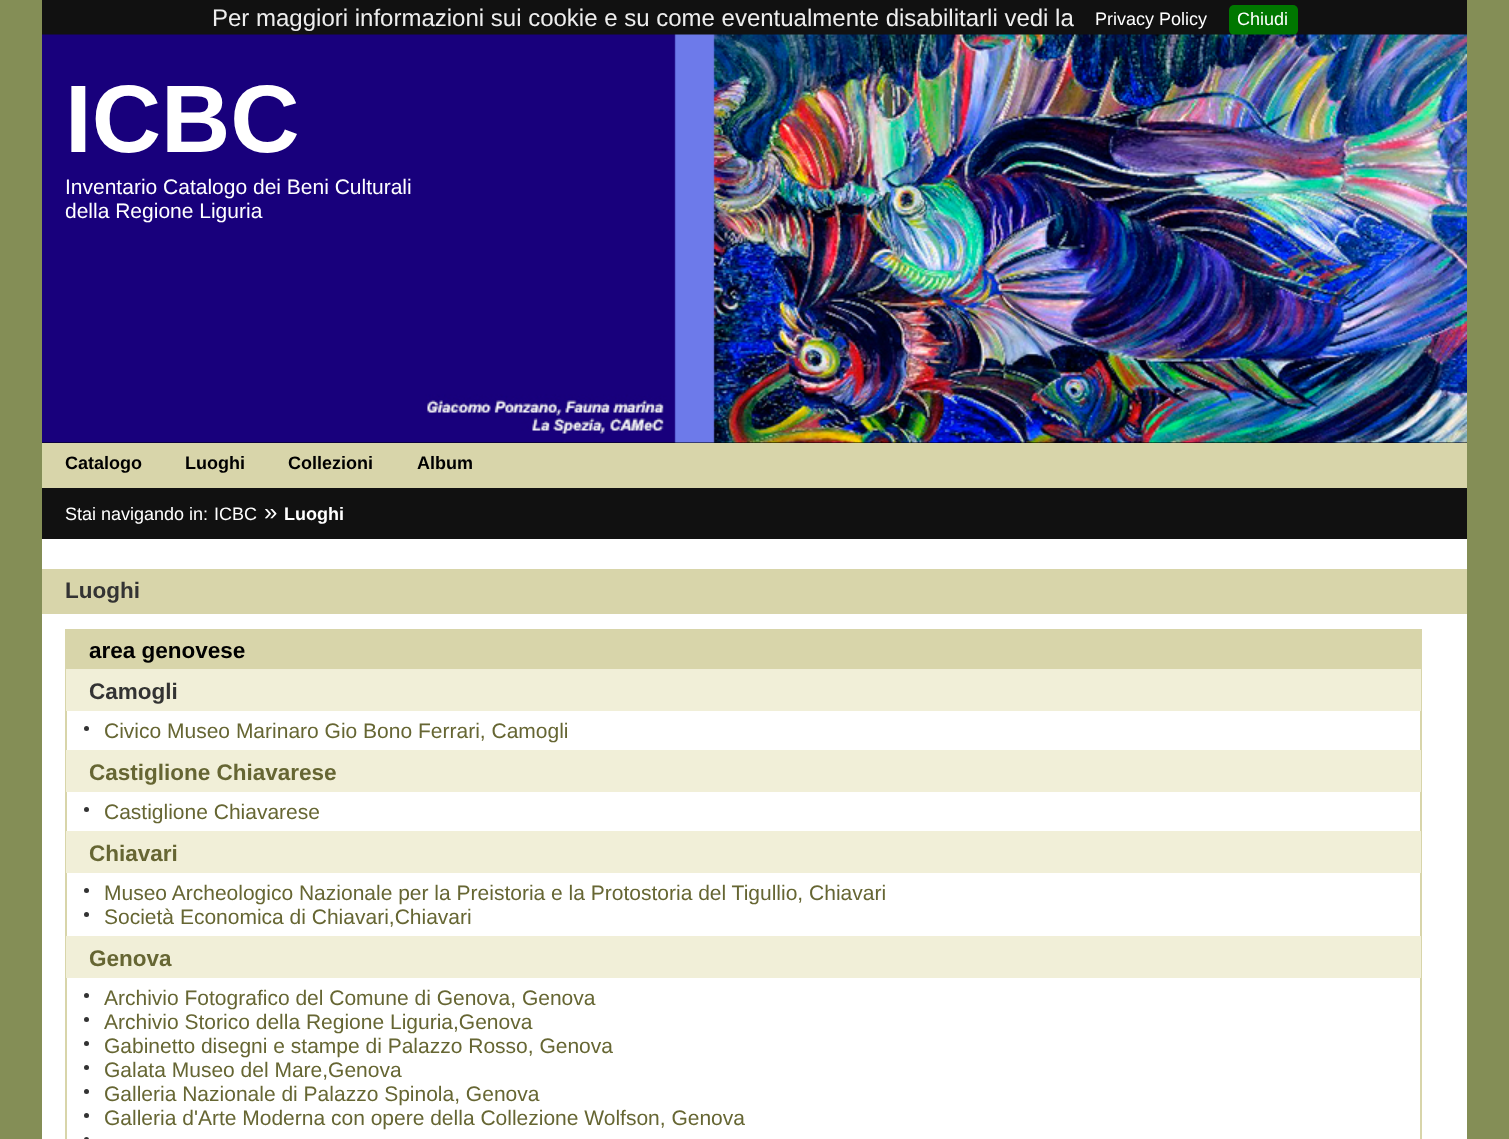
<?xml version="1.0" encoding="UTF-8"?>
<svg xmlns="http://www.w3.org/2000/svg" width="1509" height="1139">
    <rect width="100%" height="100%" fill="#848E56"/>
    <rect x="42" y="0" width="1425" height="35" fill="#111111"/>
    <text x="212" y="26" font-family="Liberation Sans" font-size="24" fill="#EEEEEE">Per maggiori informazioni sui cookie e su come eventualmente disabilitarli vedi la</text>
    <text x="1095" y="25" font-family="Liberation Sans" font-size="18" fill="#FFFFFF">Privacy Policy</text>
    <rect x="1229" y="5" width="69" height="30" rx="5" fill="#007700"/>
    <text x="1237" y="25" font-family="Liberation Sans" font-size="18" fill="#FFFFFF">Chiudi</text>
    <rect x="42" y="539" width="1425" height="600" fill="#FFFFFF"/>
    <rect x="42" y="442" width="1425" height="1" fill="#000000"/>
    <image x="42" y="34" width="1425" height="409" href="img_01.png"/>
    <text x="65" y="152" font-family="Liberation Sans" font-size="96" font-weight="700" fill="#FFFFFF">ICBC</text>
    <text font-family="Liberation Sans" font-size="21" fill="#FFFFFF">
        <tspan x="65" y="194">Inventario Catalogo dei Beni Culturali</tspan>
        <tspan x="65" y="218">della Regione Liguria</tspan>
    </text>
    <rect x="44" y="443" width="1423" height="45" fill="#D8D5AA"/>
    <rect x="42" y="443" width="2" height="45" fill="#D7D7A9"/>
    <text x="65" y="469" font-family="Liberation Sans" font-size="18" font-weight="700" fill="#000000">Catalogo</text>
    <text x="185" y="469" font-family="Liberation Sans" font-size="18" font-weight="700" fill="#000000">Luoghi</text>
    <text x="288" y="469" font-family="Liberation Sans" font-size="18" font-weight="700" fill="#000000">Collezioni</text>
    <text x="417" y="469" font-family="Liberation Sans" font-size="18" font-weight="700" fill="#000000">Album</text>
    <rect x="42" y="488" width="1425" height="51" fill="#111111"/>
    <text x="65" y="520" font-family="Liberation Sans" font-size="18" fill="#FFFFFF">Stai navigando in:</text>
    <text x="214" y="520" font-family="Liberation Sans" font-size="18" fill="#FFFFFF">ICBC</text>
    <text x="264" y="520" font-family="Liberation Sans" font-size="24" fill="#FFFFFF">»</text>
    <text x="284" y="520" font-family="Liberation Sans" font-size="18" font-weight="700" fill="#FFFFFF">Luoghi</text>
    <rect x="42" y="569" width="1425" height="45" fill="#D8D5AA"/>
    <text x="65" y="598" font-family="Liberation Sans" font-size="22.5" font-weight="700" fill="#333333">Luoghi</text>
    <rect x="66" y="630" width="1355" height="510" fill="none" stroke="#D8D5AA" stroke-width="2"/>
    <rect x="67" y="631" width="1353" height="37" fill="#D8D5AA"/>
    <rect x="66" y="668" width="1355" height="1" fill="#D8D5AA"/>
    <text x="89" y="658" font-family="Liberation Sans" font-size="22.5" font-weight="700" fill="#000000">area genovese</text>
    <rect x="66" y="669" width="1355" height="42" fill="#F1EFD8"/>
    <text x="89" y="699" font-family="Liberation Sans" font-size="22.5" font-weight="700" fill="#333333">Camogli</text>
    <circle cx="86.5" cy="728.5" r="2.5" fill="#333333"/>
    <text x="104" y="738" font-family="Liberation Sans" font-size="21" fill="#666633">Civico Museo Marinaro Gio Bono Ferrari, Camogli</text>
    <rect x="66" y="750" width="1355" height="42" fill="#F1EFD8"/>
    <text x="89" y="780" font-family="Liberation Sans" font-size="22.5" font-weight="700" fill="#666633">Castiglione Chiavarese</text>
    <circle cx="86.5" cy="809.5" r="2.5" fill="#333333"/>
    <text x="104" y="819" font-family="Liberation Sans" font-size="21" fill="#666633">Castiglione Chiavarese</text>
    <rect x="66" y="831" width="1355" height="42" fill="#F1EFD8"/>
    <text x="89" y="861" font-family="Liberation Sans" font-size="22.5" font-weight="700" fill="#666633">Chiavari</text>
    <circle cx="86.5" cy="890.5" r="2.5" fill="#333333"/>
    <text x="104" y="900" font-family="Liberation Sans" font-size="21" fill="#666633">Museo Archeologico Nazionale per la Preistoria e la Protostoria del Tigullio, Chiavari</text>
    <circle cx="86.5" cy="914.5" r="2.5" fill="#333333"/>
    <text x="104" y="924" font-family="Liberation Sans" font-size="21" fill="#666633">Società Economica di Chiavari,Chiavari</text>
    <rect x="66" y="936" width="1355" height="42" fill="#F1EFD8"/>
    <text x="89" y="966" font-family="Liberation Sans" font-size="22.5" font-weight="700" fill="#666633">Genova</text>
    <circle cx="86.5" cy="995.5" r="2.5" fill="#333333"/>
    <text x="104" y="1005" font-family="Liberation Sans" font-size="21" fill="#666633">Archivio Fotografico del Comune di Genova, Genova</text>
    <circle cx="86.5" cy="1019.5" r="2.5" fill="#333333"/>
    <text x="104" y="1029" font-family="Liberation Sans" font-size="21" fill="#666633">Archivio Storico della Regione Liguria,Genova</text>
    <circle cx="86.5" cy="1043.5" r="2.5" fill="#333333"/>
    <text x="104" y="1053" font-family="Liberation Sans" font-size="21" fill="#666633">Gabinetto disegni e stampe di Palazzo Rosso, Genova</text>
    <circle cx="86.5" cy="1067.5" r="2.5" fill="#333333"/>
    <text x="104" y="1077" font-family="Liberation Sans" font-size="21" fill="#666633">Galata Museo del Mare,Genova</text>
    <circle cx="86.5" cy="1091.5" r="2.5" fill="#333333"/>
    <text x="104" y="1101" font-family="Liberation Sans" font-size="21" fill="#666633">Galleria Nazionale di Palazzo Spinola, Genova</text>
    <circle cx="86.5" cy="1115.5" r="2.5" fill="#333333"/>
    <text x="104" y="1125" font-family="Liberation Sans" font-size="21" fill="#666633">Galleria d'Arte Moderna con opere della Collezione Wolfson, Genova</text>
    <circle cx="86.5" cy="1139.5" r="2.5" fill="#333333"/>
</svg>
